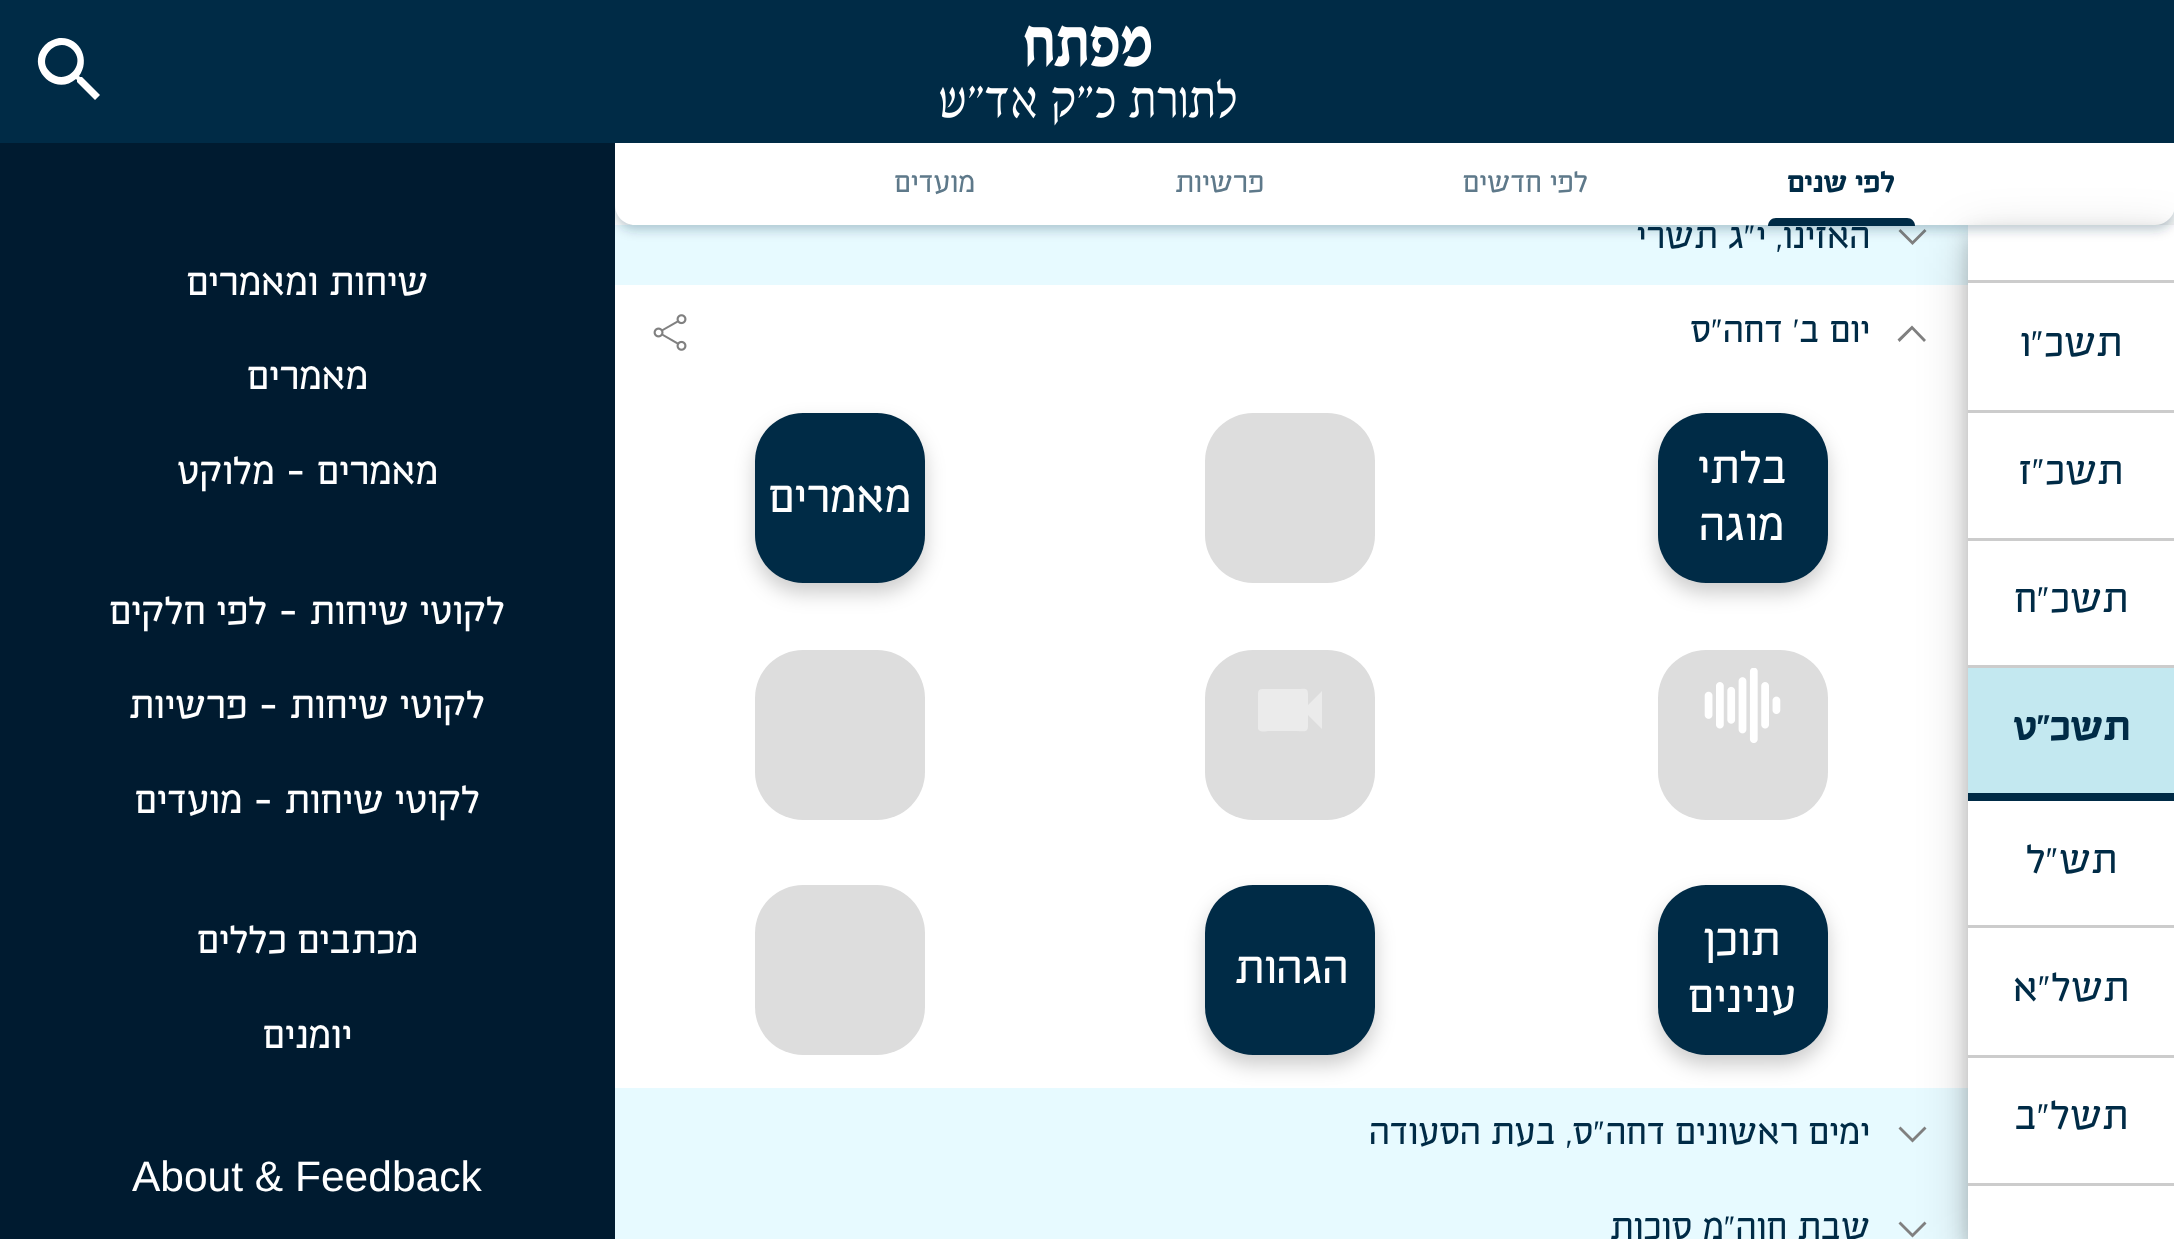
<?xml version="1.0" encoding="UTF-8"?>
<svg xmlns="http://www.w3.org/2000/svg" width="2174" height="1239">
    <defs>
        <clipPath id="clip1"><path d="M 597 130 H 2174 V 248 H 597 Z M 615 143 H 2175 V 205 C 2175 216 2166 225 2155 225 H 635 C 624 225 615 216 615 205 Z" clip-rule="evenodd"/></clipPath>
        <filter id="blur1" x="-50%" y="-200%" width="200%" height="500%"><feGaussianBlur stdDeviation="5.5"/></filter>
        <clipPath id="clip2"><path d="M 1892 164 H 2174 V 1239 H 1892 Z M 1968 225 H 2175 V 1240 H 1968 Z" clip-rule="evenodd"/></clipPath>
        <filter id="blur2" x="-50%" y="-200%" width="200%" height="500%"><feGaussianBlur stdDeviation="25"/></filter>
        <clipPath id="clip3"><path d="M 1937 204 H 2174 V 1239 H 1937 Z M 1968 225 H 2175 V 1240 H 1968 Z" clip-rule="evenodd"/></clipPath>
        <filter id="blur3" x="-50%" y="-200%" width="200%" height="500%"><feGaussianBlur stdDeviation="10"/></filter>
    </defs>
    <rect width="100%" height="100%" fill="#FFFFFF"/>
    <rect x="615" y="225" width="1353" height="1014" fill="#E7FAFF"/>
    <path d="M 1912.5 245 L 1898.5 231 L 1900.5 229 L 1912.5 241 L 1924.5 229 L 1926.5 231 Z" fill="#808080"/>
    <g clip-path="url(#clip1)">
        <rect x="615" y="148" width="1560" height="82" rx="20" fill="#002B46" fill-opacity="0.25" filter="url(#blur1)"/>
    </g>
    <rect x="0" y="0" width="2174" height="143" fill="#002B46"/>
    <image x="940" y="25" width="296" height="101" href="img_01.png"/>
    <path d="M 50 72 C 65 87 87 65 73 50 C 58 35 35 58 50 72 Z M 82 77 L 100 95 L 95 100 L 77 82 V 80 L 76 79 C 54 98 24 66 45 45 C 49 41 54 39 59 38 C 80 36 91 60 79 76 L 80 77 Z" fill="#FFFFFF"/>
    <rect x="615" y="285" width="1353" height="803" fill="#FFFFFF"/>
    <path d="M 1912 325.5 L 1926 340 L 1924 342 L 1912 329.5 L 1899.5 342 L 1897.5 339.5 Z" fill="#808080"/>
    <path d="M 1912.5 1142.5 L 1898.5 1128.5 L 1900.5 1126.5 L 1912.5 1138.5 L 1924.5 1126.5 L 1926.5 1128.5 Z" fill="#808080"/>
    <path d="M 1912.5 1237.5 L 1898.5 1223.5 L 1900.5 1221.5 L 1912.5 1233.5 L 1924.5 1221.5 L 1926.5 1223.5 Z" fill="#808080"/>
    <g clip-path="url(#clip2)">
        <rect x="1968" y="240" width="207" height="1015" fill="#000000" fill-opacity="0.19" filter="url(#blur2)"/>
    </g>
    <text x="1895" y="192" font-family="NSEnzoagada" font-size="32" font-weight="500" direction="rtl" fill="#002B46">לפי שנים</text>
    <path d="M 1776 218 H 1907 C 1911.5 218 1915 221.5 1915 226 H 1768 C 1768 221.5 1771.5 218 1776 218 Z" fill="#002B46"/>
    <text x="1588" y="192" font-family="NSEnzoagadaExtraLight" font-size="32" font-weight="200" direction="rtl" fill="#5E798A">לפי חדשים</text>
    <text x="1264" y="192" font-family="NSEnzoagadaExtraLight" font-size="32" font-weight="200" direction="rtl" fill="#5E798A">פרשיות</text>
    <text x="975" y="192" font-family="NSEnzoagadaExtraLight" font-size="32" font-weight="200" direction="rtl" fill="#5E798A">מועדים</text>
    <g clip-path="url(#clip3)">
        <rect x="1968" y="235" width="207" height="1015" fill="#000000" fill-opacity="0.2" filter="url(#blur3)"/>
    </g>
    <rect x="1968" y="280" width="206" height="3" fill="#CCCCCC"/>
    <rect x="1968" y="410" width="206" height="3" fill="#CCCCCC"/>
    <text x="2122" y="356" font-family="NSEnzoagadaExtraLight" font-size="44" font-weight="200" direction="rtl" fill="#002B46">תשכ"ו</text>
    <rect x="1968" y="538" width="206" height="3" fill="#CCCCCC"/>
    <text x="2123" y="484" font-family="NSEnzoagadaExtraLight" font-size="44" font-weight="200" direction="rtl" fill="#002B46">תשכ"ז</text>
    <rect x="1968" y="665" width="206" height="3" fill="#CCCCCC"/>
    <text x="2128" y="612" font-family="NSEnzoagadaExtraLight" font-size="44" font-weight="200" direction="rtl" fill="#002B46">תשכ"ח</text>
    <rect x="1968" y="668" width="206" height="125" fill="#C3E8F0"/>
    <rect x="1968" y="793" width="206" height="8" fill="#002B46"/>
    <text x="2130" y="740" font-family="NSEnzoagada" font-size="44" font-weight="500" direction="rtl" fill="#002B46">תשכ"ט</text>
    <rect x="1968" y="925" width="206" height="3" fill="#CCCCCC"/>
    <text x="2117" y="873" font-family="NSEnzoagadaExtraLight" font-size="44" font-weight="200" direction="rtl" fill="#002B46">תש"ל</text>
    <rect x="1968" y="1055" width="206" height="3" fill="#CCCCCC"/>
    <text x="2129" y="1001" font-family="NSEnzoagadaExtraLight" font-size="44" font-weight="200" direction="rtl" fill="#002B46">תשל"א</text>
    <rect x="1968" y="1183" width="206" height="3" fill="#CCCCCC"/>
    <text x="2128" y="1129" font-family="NSEnzoagadaExtraLight" font-size="44" font-weight="200" direction="rtl" fill="#002B46">תשל"ב</text>
    <text x="1870" y="248" font-family="NSEnzoagadaExtraLight" font-size="40" font-weight="200" direction="rtl" fill="#002B46">האזינו, י"ג תשרי</text>
    <text x="1870" y="342" font-family="NSEnzoagadaExtraLight" font-size="40" font-weight="200" direction="rtl" fill="#002B46">יום ב' דחה"ס</text>
    <image x="653" y="314" width="34" height="37" href="img_02.png"/>
    <rect x="1658" y="423" width="170" height="170" rx="48" fill="#000000" fill-opacity="0.2" filter="url(#blur3)"/>
    <rect x="1658" y="413" width="170" height="170" rx="48" fill="#002B46"/>
    <text x="1787" y="483" font-family="NSEnzoagadaExtraLight" font-size="50" font-weight="200" direction="rtl" fill="#FFFFFF">בלתי</text>
    <text x="1784" y="540" font-family="NSEnzoagadaExtraLight" font-size="50" font-weight="200" direction="rtl" fill="#FFFFFF">מוגה</text>
    <rect x="1205" y="413" width="170" height="170" rx="48" fill="#DDDDDD"/>
    <rect x="755" y="423" width="170" height="170" rx="48" fill="#000000" fill-opacity="0.2" filter="url(#blur3)"/>
    <rect x="755" y="413" width="170" height="170" rx="48" fill="#002B46"/>
    <text x="911" y="512" font-family="NSEnzoagadaExtraLight" font-size="50" font-weight="200" direction="rtl" fill="#FFFFFF">מאמרים</text>
    <rect x="1658" y="650" width="170" height="170" rx="48" fill="#DDDDDD"/>
    <image x="1704" y="668" width="77" height="75" href="img_03.png"/>
    <rect x="1205" y="650" width="170" height="170" rx="48" fill="#DDDDDD"/>
    <path d="M 1308 705 L 1322 691 V 729 L 1308 715 V 726 C 1308 733 1304 731 1297 731 H 1269 C 1267 731 1260 733 1258 729 V 698 C 1258 688 1258 689 1269 689 H 1297 C 1304 689 1308 687 1308 694 Z" fill="#EBEBEB"/>
    <rect x="755" y="650" width="170" height="170" rx="48" fill="#DDDDDD"/>
    <rect x="1658" y="895" width="170" height="170" rx="48" fill="#000000" fill-opacity="0.2" filter="url(#blur3)"/>
    <rect x="1658" y="885" width="170" height="170" rx="48" fill="#002B46"/>
    <text x="1780" y="955" font-family="NSEnzoagadaExtraLight" font-size="50" font-weight="200" direction="rtl" fill="#FFFFFF">תוכן</text>
    <text x="1796" y="1012" font-family="NSEnzoagadaExtraLight" font-size="50" font-weight="200" direction="rtl" fill="#FFFFFF">ענינים</text>
    <rect x="1205" y="895" width="170" height="170" rx="48" fill="#000000" fill-opacity="0.2" filter="url(#blur3)"/>
    <rect x="1205" y="885" width="170" height="170" rx="48" fill="#002B46"/>
    <text x="1348" y="983" font-family="NSEnzoagadaExtraLight" font-size="50" font-weight="200" direction="rtl" fill="#FFFFFF">הגהות</text>
    <rect x="755" y="885" width="170" height="170" rx="48" fill="#DDDDDD"/>
    <text x="1870" y="1144" font-family="NSEnzoagadaExtraLight" font-size="40" font-weight="200" direction="rtl" fill="#002B46">ימים ראשונים דחה"ס, בעת הסעודה</text>
    <text x="1870" y="1239" font-family="NSEnzoagadaExtraLight" font-size="40" font-weight="200" direction="rtl" fill="#002B46">שבת חוה"מ סוכות</text>
    <rect x="0" y="143" width="615" height="1096" fill="#001B30"/>
    <text x="428" y="295" font-family="NSEnzoagadaExtraLight" font-size="42.5" font-weight="200" direction="rtl" fill="#FFFFFF">שיחות ומאמרים</text>
    <text x="368" y="389" font-family="NSEnzoagadaExtraLight" font-size="42.5" font-weight="200" direction="rtl" fill="#FFFFFF">מאמרים</text>
    <text x="438" y="484" font-family="NSEnzoagadaExtraLight" font-size="42.5" font-weight="200" direction="rtl" fill="#FFFFFF">מאמרים - מלוקט</text>
    <text x="505" y="624" font-family="NSEnzoagadaExtraLight" font-size="42.5" font-weight="200" direction="rtl" fill="#FFFFFF">לקוטי שיחות - לפי חלקים</text>
    <text x="485" y="718" font-family="NSEnzoagadaExtraLight" font-size="42.5" font-weight="200" direction="rtl" fill="#FFFFFF">לקוטי שיחות - פרשיות</text>
    <text x="480" y="813" font-family="NSEnzoagadaExtraLight" font-size="42.5" font-weight="200" direction="rtl" fill="#FFFFFF">לקוטי שיחות - מועדים</text>
    <text x="418" y="953" font-family="NSEnzoagadaExtraLight" font-size="42.5" font-weight="200" direction="rtl" fill="#FFFFFF">מכתבים כללים</text>
    <text x="352" y="1048" font-family="NSEnzoagadaExtraLight" font-size="42.5" font-weight="200" direction="rtl" fill="#FFFFFF">יומנים</text>
    <text x="132" y="1191" font-family="Liberation Sans" font-size="42.5" fill="#FFFFFF">About &amp; Feedback</text>
</svg>
